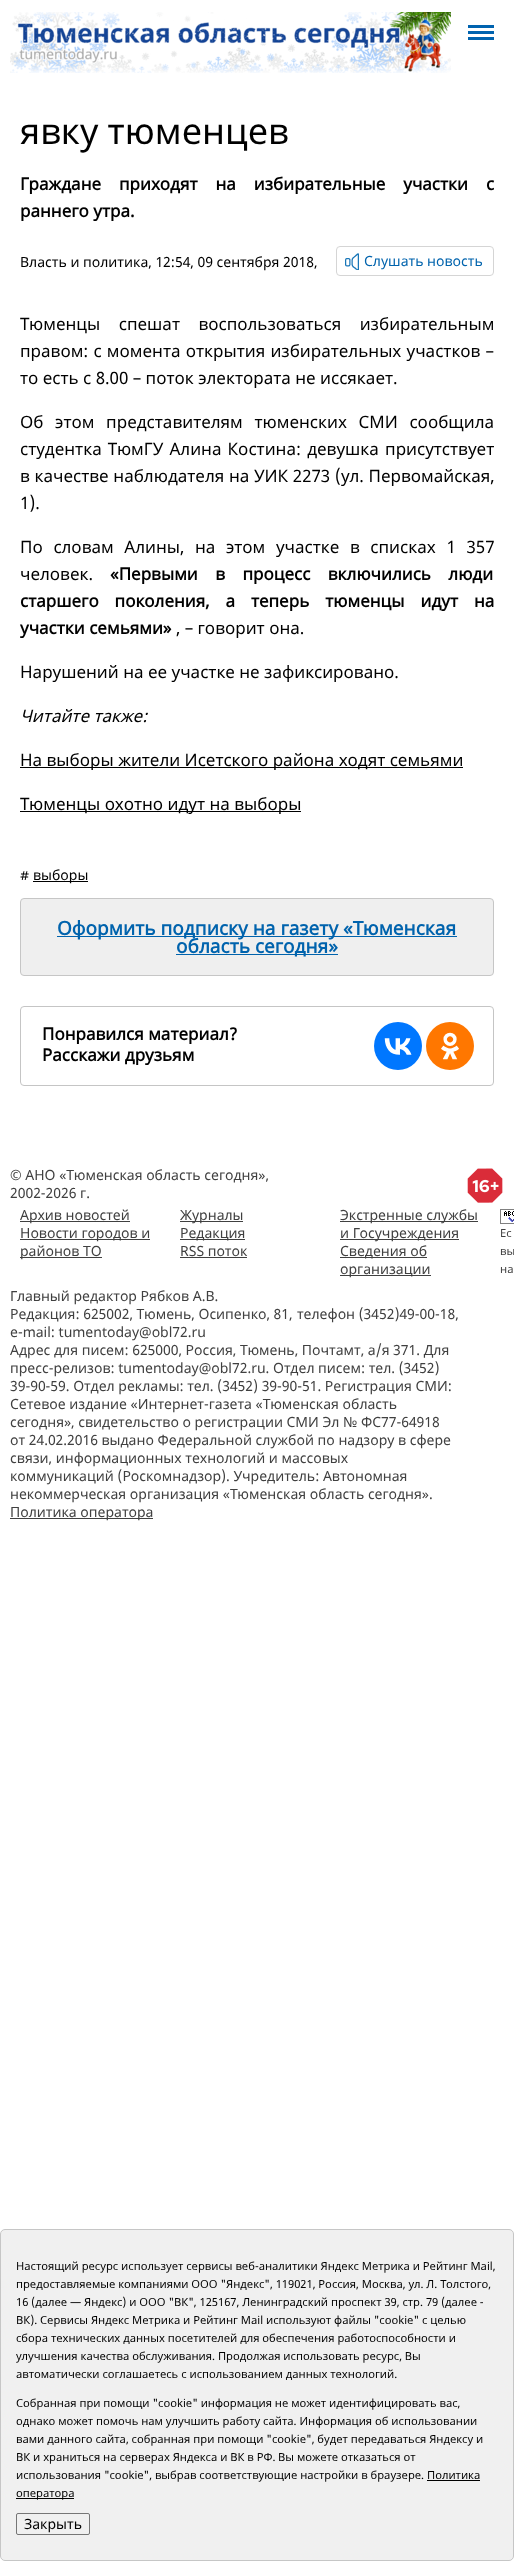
<?xml version="1.0" encoding="UTF-8"?>
<svg xmlns="http://www.w3.org/2000/svg" width="514" height="2561">
    <rect width="100%" height="100%" fill="#FFFFFF"/>
    <image x="10" y="12" width="441" height="61" href="img_01.png"/>
    <image x="468" y="25" width="26" height="15" href="img_02.png"/>
    <text x="20" y="144" font-family="Noto Sans" font-size="36" fill="#000000">явку тюменцев</text>
    <text font-family="Noto Sans" font-size="17" font-weight="700" fill="#000000">
        <tspan x="20" y="190" word-spacing="13.5">Граждане приходят на избирательные участки с</tspan>
        <tspan x="20" y="217">раннего утра.</tspan>
    </text>
    <text x="20" y="267" font-family="Noto Sans" font-size="14" fill="#000000">Власть и политика, 12:54, 09 сентября 2018,</text>
    <rect x="336.5" y="246.5" width="157" height="29" rx="3.5" fill="none" stroke="#D5D5D5"/>
    <image x="345" y="253" width="14" height="17" href="img_03.png"/>
    <text x="364" y="266" font-family="Noto Sans" font-size="14" fill="#0063AD">Слушать новость</text>
    <text font-family="Noto Sans" font-size="17" fill="#000000">
        <tspan x="20" y="330" word-spacing="14">Тюменцы спешат воспользоваться избирательным</tspan>
        <tspan x="20" y="357" word-spacing="0.75">правом: с момента открытия избирательных участков –</tspan>
        <tspan x="20" y="384">то есть с 8.00 – поток электората не иссякает.</tspan>
    </text>
    <text font-family="Noto Sans" font-size="17" fill="#000000">
        <tspan x="20" y="428" word-spacing="7.25">Об этом представителям тюменских СМИ сообщила</tspan>
        <tspan x="20" y="455" word-spacing="1.75">студентка ТюмГУ Алина Костина: девушка присутствует</tspan>
        <tspan x="20" y="482" word-spacing="0.25">в качестве наблюдателя на УИК 2273 (ул. Первомайская,</tspan>
        <tspan x="20" y="509">1).</tspan>
    </text>
    <text font-family="Noto Sans" font-size="17" fill="#000000">
        <tspan x="20" y="553" word-spacing="6.25">По словам Алины, на этом участке в списках 1 357</tspan>
        <tspan x="20" y="580">человек.</tspan>
    </text>
    <text x="110" y="580" word-spacing="13" font-family="Noto Sans" font-size="17" font-weight="700" fill="#000000">«Первыми в процесс включились люди</text>
    <text font-family="Noto Sans" font-size="17" font-weight="700" fill="#000000">
        <tspan x="20" y="607" word-spacing="11.5">старшего поколения, а теперь тюменцы идут на</tspan>
        <tspan x="20" y="634">участки семьями»</tspan>
    </text>
    <text x="176" y="634" font-family="Noto Sans" font-size="17" fill="#000000">, – говорит она.</text>
    <text x="20" y="678" font-family="Noto Sans" font-size="17" fill="#000000">Нарушений на ее участке не зафиксировано.</text>
    <text x="20" y="722" font-family="Noto Sans" font-size="17" font-style="italic" fill="#000000">Читайте также:</text>
    <rect x="20" y="767" width="443" height="1" fill="#000000"/>
    <text x="20" y="766" font-family="Noto Sans" font-size="17" fill="#000000">На выборы жители Исетского района ходят семьями</text>
    <rect x="20" y="811" width="281" height="1" fill="#000000"/>
    <text x="20" y="810" font-family="Noto Sans" font-size="17" fill="#000000">Тюменцы охотно идут на выборы</text>
    <text x="20" y="880" font-family="Noto Sans" font-size="14" fill="#000000">#</text>
    <rect x="33" y="881" width="55" height="1" fill="#000000"/>
    <text x="33" y="880" font-family="Noto Sans" font-size="14" fill="#000000">выборы</text>
    <rect x="20.5" y="898.5" width="473" height="77" rx="3.5" fill="#EFEFEF" stroke="#C6C6C6"/>
    <rect x="57" y="936" width="400" height="1" fill="#0063AD"/>
    <text x="57" y="935" font-family="Noto Sans" font-size="19" font-weight="700" fill="#0063AD">Оформить подписку на газету «Тюменская</text>
    <rect x="176" y="954" width="162" height="1" fill="#0063AD"/>
    <text x="176" y="953" font-family="Noto Sans" font-size="19" font-weight="700" fill="#0063AD">область сегодня»</text>
    <rect x="20.5" y="1006.5" width="473" height="79" rx="3.5" fill="none" stroke="#C5C5C5"/>
    <text font-family="Noto Sans" font-size="17" font-weight="700" fill="#000000">
        <tspan x="42" y="1040">Понравился материал?</tspan>
        <tspan x="42" y="1061">Расскажи друзьям</tspan>
    </text>
    <circle cx="398" cy="1046" r="24" fill="#0077FF"/>
    <image x="384" y="1038" width="28" height="17" href="img_04.png"/>
    <circle cx="450" cy="1046" r="24" fill="#FF7700"/>
    <image x="441" y="1032" width="18" height="28" href="img_05.png"/>
    <text font-family="Noto Sans" font-size="14" fill="#404040">
        <tspan x="10" y="1180">© АНО «Тюменская область сегодня»,</tspan>
        <tspan x="10" y="1198">2002-2026 г.</tspan>
    </text>
    <image x="467" y="1168" width="36" height="35" href="img_06.png"/>
    <rect x="20" y="1221" width="110" height="1" fill="#404040"/>
    <text x="20" y="1220" font-family="Noto Sans" font-size="14" fill="#404040">Архив новостей</text>
    <rect x="20" y="1239" width="130" height="1" fill="#404040"/>
    <text x="20" y="1238" font-family="Noto Sans" font-size="14" fill="#404040">Новости городов и</text>
    <rect x="20" y="1257" width="82" height="1" fill="#404040"/>
    <text x="20" y="1256" font-family="Noto Sans" font-size="14" fill="#404040">районов ТО</text>
    <rect x="180" y="1221" width="63" height="1" fill="#404040"/>
    <text x="180" y="1220" font-family="Noto Sans" font-size="14" fill="#404040">Журналы</text>
    <rect x="180" y="1239" width="65" height="1" fill="#404040"/>
    <text font-family="Noto Sans" font-size="14" fill="#404040">
        <tspan x="180" y="1238">Редакция</tspan>
        <tspan x="180" y="1256">RSS поток</tspan>
    </text>
    <rect x="180" y="1257" width="67" height="1" fill="#404040"/>
    <rect x="340" y="1221" width="138" height="1" fill="#404040"/>
    <text x="340" y="1220" font-family="Noto Sans" font-size="14" fill="#404040">Экстренные службы</text>
    <rect x="340" y="1239" width="119" height="1" fill="#404040"/>
    <text x="340" y="1238" font-family="Noto Sans" font-size="14" fill="#404040">и Госучреждения</text>
    <rect x="340" y="1257" width="87" height="1" fill="#404040"/>
    <text x="340" y="1256" font-family="Noto Sans" font-size="14" fill="#404040">Сведения об</text>
    <rect x="340" y="1275" width="91" height="1" fill="#404040"/>
    <text x="340" y="1274" font-family="Noto Sans" font-size="14" fill="#404040">организации</text>
    <image x="500" y="1209" width="14" height="15" href="img_07.png"/>
    <text font-family="Noto Sans" font-size="11.2" fill="#404040">
        <tspan x="500" y="1237">Ес</tspan>
        <tspan x="500" y="1255">вы</tspan>
        <tspan x="500" y="1273">на</tspan>
    </text>
    <text font-family="Noto Sans" font-size="14" fill="#404040">
        <tspan x="10" y="1301">Главный редактор Рябков А.В.</tspan>
        <tspan x="10" y="1319">Редакция: 625002, Тюмень, Осипенко, 81,</tspan>
    </text>
    <text x="297" y="1319" font-family="Noto Sans" font-size="14" fill="#404040">телефон (3452)49-00-18,</text>
    <text font-family="Noto Sans" font-size="14" fill="#404040">
        <tspan x="10" y="1337">e-mail: tumentoday@obl72.ru</tspan>
        <tspan x="10" y="1355">Адрес для писем: 625000, Россия, Тюмень, Почтамт, а/я 371. Для</tspan>
        <tspan x="10" y="1373">пресс-релизов: tumentoday@obl72.ru. Отдел писем: тел. (3452)</tspan>
        <tspan x="10" y="1391">39-90-59. Отдел рекламы: тел. (3452) 39-90-51. Регистрация СМИ:</tspan>
        <tspan x="10" y="1409">Сетевое издание «Интернет-газета «Тюменская область</tspan>
        <tspan x="10" y="1427">сегодня», свидетельство о регистрации СМИ Эл № ФС77-64918</tspan>
        <tspan x="10" y="1445">от 24.02.2016 выдано Федеральной службой по надзору в сфере</tspan>
        <tspan x="10" y="1463">связи, информационных технологий и массовых</tspan>
        <tspan x="10" y="1481">коммуникаций (Роскомнадзор). Учредитель: Автономная</tspan>
        <tspan x="10" y="1499">некоммерческая организация «Тюменская область сегодня».</tspan>
    </text>
    <rect x="10" y="1518" width="143" height="1" fill="#404040"/>
    <text x="10" y="1517" font-family="Noto Sans" font-size="14" fill="#404040">Политика оператора</text>
    <rect x="0.5" y="2229.5" width="513" height="331" rx="4.5" fill="#F0F0F0" stroke="#C6C6C6"/>
    <text font-family="Noto Sans" font-size="11.2" fill="#000000">
        <tspan x="16" y="2270">Настоящий ресурс использует сервисы веб-аналитики Яндекс Метрика и Рейтинг Mail,</tspan>
        <tspan x="16" y="2288">предоставляемые компаниями ООО "Яндекс", 119021, Россия, Москва, ул. Л. Толстого,</tspan>
        <tspan x="16" y="2306">16 (далее — Яндекс) и ООО "ВК", 125167, Ленинградский проспект 39, стр. 79 (далее -</tspan>
        <tspan x="16" y="2324">ВК). Сервисы Яндекс Метрика и Рейтинг Mail используют файлы "cookie" с целью</tspan>
        <tspan x="16" y="2342">сбора технических данных посетителей для обеспечения работоспособности и</tspan>
        <tspan x="16" y="2360">улучшения качества обслуживания. Продолжая использовать ресурс, Вы</tspan>
        <tspan x="16" y="2378">автоматически соглашаетесь с использованием данных технологий.</tspan>
    </text>
    <text font-family="Noto Sans" font-size="11.2" fill="#000000">
        <tspan x="16" y="2407">Собранная при помощи "cookie" информация не может идентифицировать вас,</tspan>
        <tspan x="16" y="2425">однако может помочь нам улучшить работу сайта. Информация об использовании</tspan>
        <tspan x="16" y="2443">вами данного сайта, собранная при помощи "cookie", будет передаваться Яндексу и</tspan>
        <tspan x="16" y="2461">ВК и храниться на серверах Яндекса и ВК в РФ.</tspan>
    </text>
    <text x="278" y="2461" font-family="Noto Sans" font-size="11.2" fill="#000000">Вы можете отказаться от</text>
    <text x="16" y="2479" font-family="Noto Sans" font-size="11.2" fill="#000000">использования "cookie", выбрав соответствующие настройки в браузере. Политика</text>
    <rect x="16" y="2498" width="58" height="1" fill="#000000"/>
    <text x="16" y="2497" font-family="Noto Sans" font-size="11.2" fill="#000000">оператора</text>
    <rect x="427" y="2480" width="53" height="1" fill="#000000"/>
    <rect x="16.5" y="2513.5" width="73" height="21" rx="1.5" fill="none" stroke="#767676"/>
    <text x="24" y="2529" font-family="Noto Sans" font-size="14" fill="#000000">Закрыть</text>
</svg>
